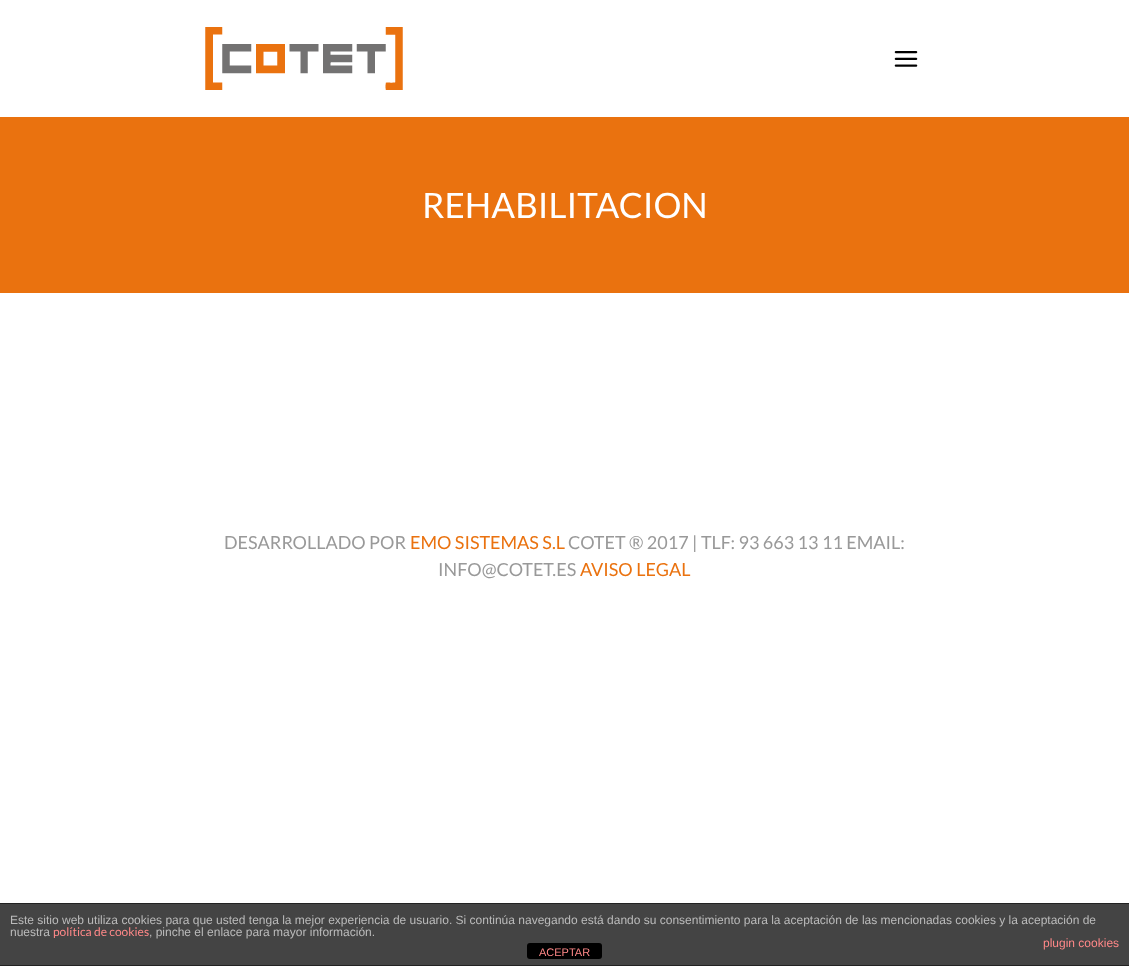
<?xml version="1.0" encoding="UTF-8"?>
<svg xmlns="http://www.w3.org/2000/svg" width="1129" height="966">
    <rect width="100%" height="100%" fill="#FFFFFF"/>
    <image x="205" y="27" width="198" height="63" href="img_01.png"/>
    <image x="894" y="51" width="24" height="16" href="img_02.png"/>
    <rect x="0" y="117" width="1129" height="176" fill="#EA720F"/>
    <text x="422" y="218" font-family="Lato" font-size="35" fill="#FFFFFF">REHABILITACION</text>
    <text x="224" y="549" font-family="Lato" font-size="18" fill="#999999">DESARROLLADO POR</text>
    <text x="410" y="549" font-family="Lato" font-size="18" fill="#EA720F">EMO SISTEMAS S.L</text>
    <text x="568" y="549" font-family="Lato" font-size="18" fill="#999999">COTET ® 2017 | TLF: 93 663 13 11 EMAIL:</text>
    <text x="438" y="576" font-family="Lato" font-size="18" fill="#999999">INFO@COTET.ES</text>
    <text x="580" y="576" font-family="Lato" font-size="18" fill="#EA720F">AVISO LEGAL</text>
    <rect x="0" y="904" width="1129" height="61" fill="#444444"/>
    <rect x="0" y="903" width="1129" height="1" fill="#222222"/>
    <rect x="0" y="965" width="1129" height="1" fill="#222222"/>
    <text font-family="Liberation Sans" font-size="12" fill="#BBBBBB">
        <tspan x="10" y="924">Este sitio web utiliza cookies para que usted tenga la mejor experiencia de usuario. Si continúa navegando está dando su consentimiento para la aceptación de las mencionadas cookies y la aceptación de</tspan>
        <tspan x="10" y="936">nuestra</tspan>
    </text>
    <text x="53" y="936" font-family="Lato" font-size="12" fill="#FF8888">política de cookies</text>
    <text x="149" y="936" font-family="Liberation Sans" font-size="12" fill="#BBBBBB">, pinche el enlace para mayor información.</text>
    <text x="1043" y="947" font-family="Liberation Sans" font-size="12" fill="#FF8888">plugin cookies</text>
    <rect x="527" y="943" width="75" height="16" rx="3" fill="#000000"/>
    <text x="539" y="956" font-family="Liberation Sans" font-size="11" fill="#FF8888">ACEPTAR</text>
</svg>
